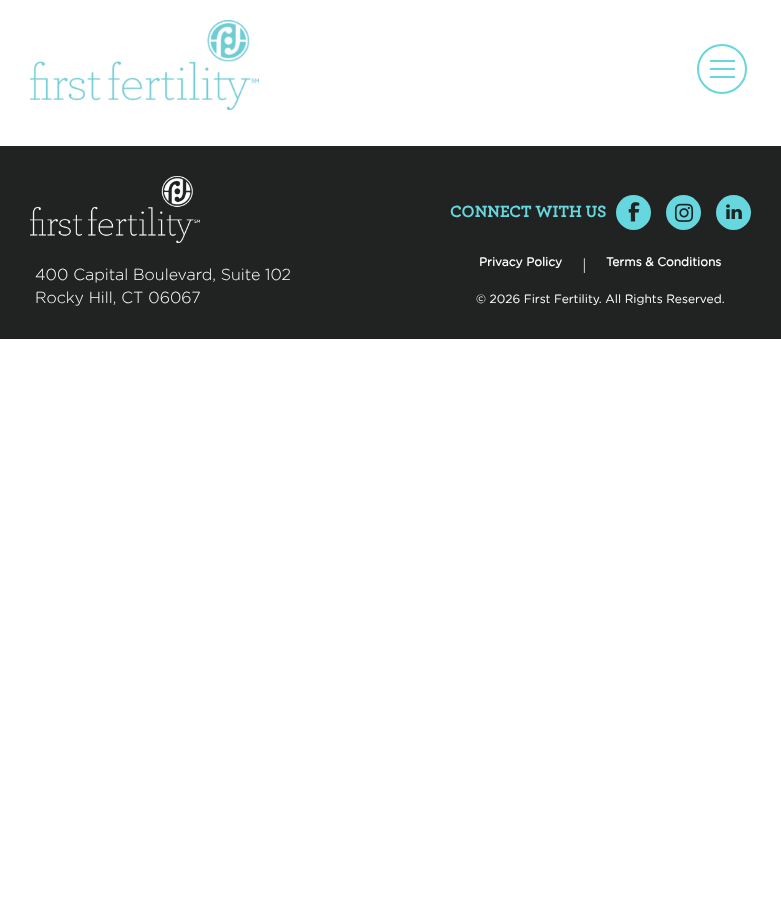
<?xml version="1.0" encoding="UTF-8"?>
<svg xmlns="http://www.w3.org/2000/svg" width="781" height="900">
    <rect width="100%" height="100%" fill="#FFFFFF"/>
    <image x="30" y="20" width="229" height="90" href="img_01.png"/>
    <circle cx="722" cy="69" r="24" fill="none" stroke="#66D7DE" stroke-width="2"/>
    <rect x="710" y="68" width="25" height="2" fill="#66D7DE"/>
    <rect x="710" y="60" width="25" height="2" fill="#66D7DE"/>
    <rect x="710" y="76" width="25" height="2" fill="#66D7DE"/>
    <rect x="0" y="146" width="781" height="193" fill="#202322"/>
    <image x="30" y="176" width="170" height="67" href="img_02.png"/>
    <text font-family="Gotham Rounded" font-size="16" font-weight="300" fill="#FFFFFF">
        <tspan x="35" y="280">400 Capital Boulevard, Suite 102</tspan>
        <tspan x="35" y="303">Rocky Hill, CT 06067</tspan>
    </text>
    <text x="450" y="217" font-family="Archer" font-size="17" font-weight="700" fill="#66D7DE">CONNECT WITH US</text>
    <circle cx="633.5" cy="212.5" r="17.5" fill="#66D7DE"/>
    <image x="628" y="202" width="12" height="20" href="img_03.png"/>
    <circle cx="683.5" cy="212.5" r="17.5" fill="#66D7DE"/>
    <image x="674" y="203" width="20" height="19" href="img_04.png"/>
    <circle cx="733.5" cy="212.5" r="17.5" fill="#66D7DE"/>
    <image x="726" y="204" width="16" height="15" href="img_05.png"/>
    <text x="479" y="266" font-family="Gotham Rounded" font-size="12" font-weight="700" fill="#FFFFFF">Privacy Policy</text>
    <text x="582" y="271" font-family="Gotham Rounded" font-size="16" font-weight="300" fill="#FFFFFF">|</text>
    <text x="606" y="266" font-family="Gotham Rounded" font-size="12" font-weight="700" fill="#FFFFFF">Terms &amp; Conditions</text>
    <text x="476" y="303" font-family="Gotham Rounded" font-size="12" fill="#FFFFFF">© 2026 First Fertility. All Rights Reserved.</text>
</svg>
